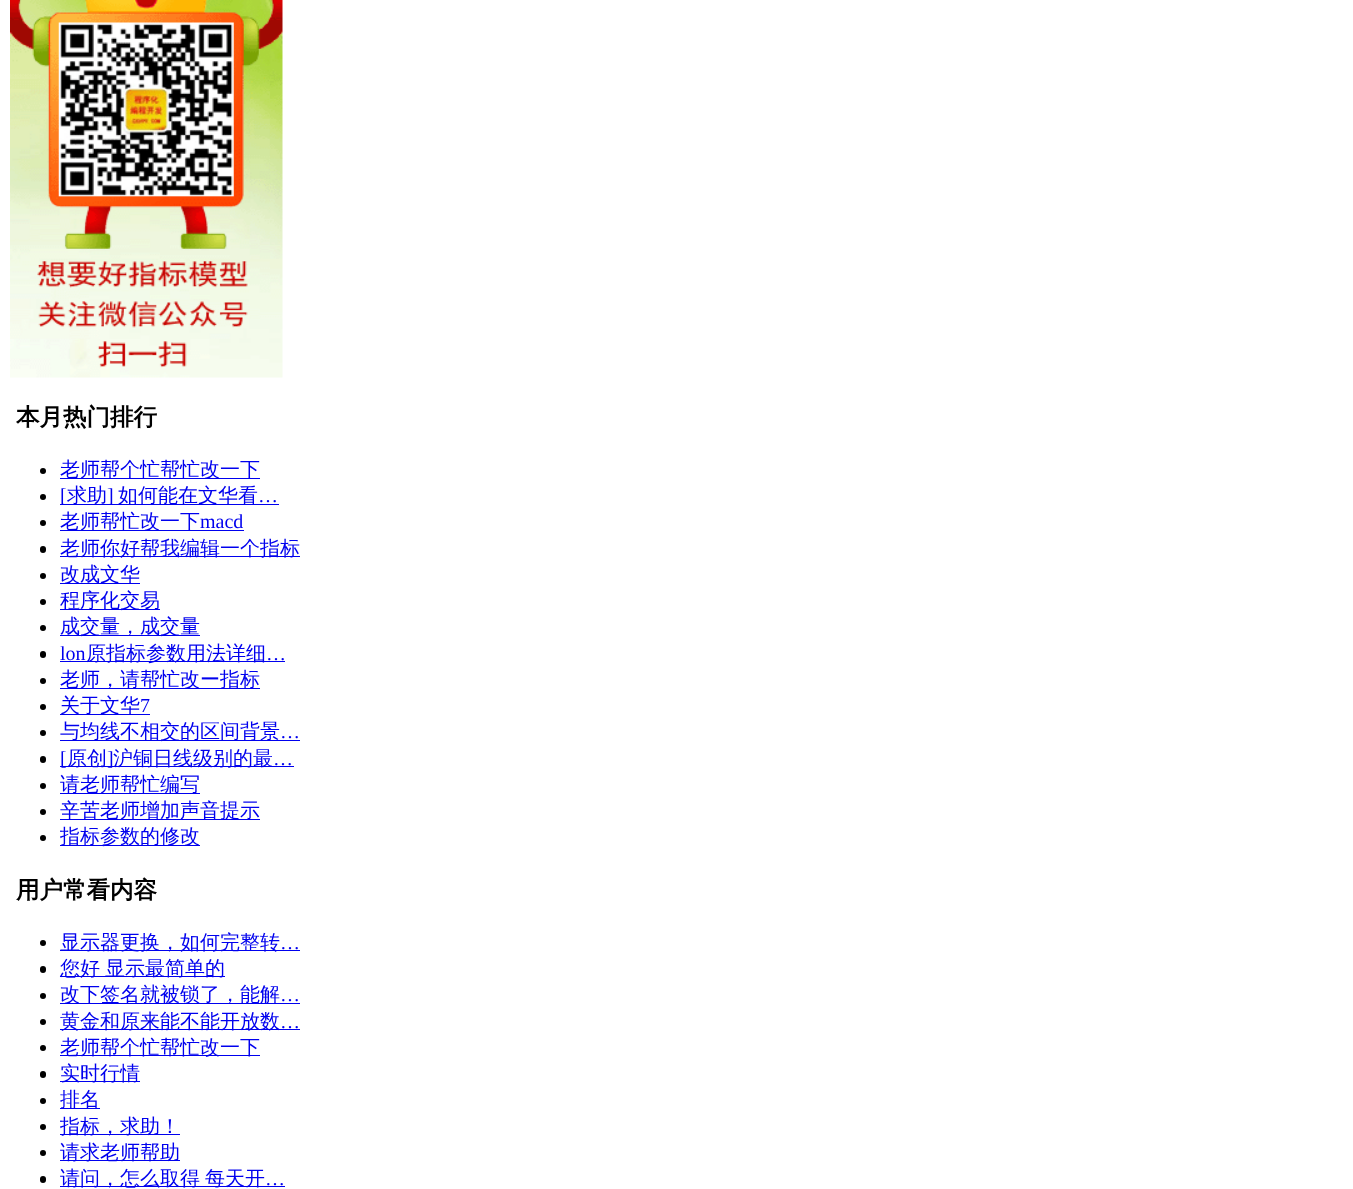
<?xml version="1.0" encoding="UTF-8"?>
<svg xmlns="http://www.w3.org/2000/svg" width="1353" height="1189">
    <rect width="100%" height="100%" fill="#FFFFFF"/>
    <image x="10" y="0" width="273" height="378" href="img_01.png"/>
    <text x="16" y="425" font-family="WenQuanYi Zen Hei" font-size="23.5" font-weight="700" fill="#000000">本月热门排行</text>
    <circle cx="43" cy="471" r="3" fill="#000000"/>
    <rect x="60" y="478" width="200" height="1" fill="#0000EE"/>
    <text x="60" y="476" font-family="WenQuanYi Zen Hei" font-size="20" font-weight="500" fill="#0000EE">老师帮个忙帮忙改一下</text>
    <circle cx="43" cy="497" r="3" fill="#000000"/>
    <rect x="60" y="504" width="219" height="1" fill="#0000EE"/>
    <text x="60" y="502" font-family="Liberation Serif" font-size="20" fill="#0000EE">[</text>
    <text x="67" y="502" font-family="WenQuanYi Zen Hei" font-size="20" font-weight="500" fill="#0000EE">求助</text>
    <text x="107" y="502" font-family="Liberation Serif" font-size="20" fill="#0000EE">]</text>
    <text x="118" y="502" font-family="WenQuanYi Zen Hei" font-size="20" font-weight="500" fill="#0000EE">如何能在文华看</text>
    <text x="258" y="502" font-family="Liberation Serif" font-size="20" fill="#0000EE">…</text>
    <circle cx="43" cy="523" r="3" fill="#000000"/>
    <rect x="60" y="530" width="184" height="1" fill="#0000EE"/>
    <text x="60" y="528" font-family="WenQuanYi Zen Hei" font-size="20" font-weight="500" fill="#0000EE">老师帮忙改一下</text>
    <text x="200" y="528" font-family="Liberation Serif" font-size="20" fill="#0000EE">macd</text>
    <rect x="40" y="546" width="6" height="7" rx="3" fill="#000000"/>
    <rect x="60" y="556" width="240" height="1" fill="#0000EE"/>
    <text x="60" y="555" font-family="WenQuanYi Zen Hei" font-size="20" font-weight="500" fill="#0000EE">老师你好帮我编辑一个指标</text>
    <circle cx="43" cy="576" r="3" fill="#000000"/>
    <rect x="60" y="583" width="80" height="1" fill="#0000EE"/>
    <text x="60" y="581" font-family="WenQuanYi Zen Hei" font-size="20" font-weight="500" fill="#0000EE">改成文华</text>
    <circle cx="43" cy="602" r="3" fill="#000000"/>
    <rect x="60" y="609" width="100" height="1" fill="#0000EE"/>
    <text x="60" y="607" font-family="WenQuanYi Zen Hei" font-size="20" font-weight="500" fill="#0000EE">程序化交易</text>
    <circle cx="43" cy="628" r="3" fill="#000000"/>
    <rect x="60" y="635" width="140" height="1" fill="#0000EE"/>
    <text x="60" y="633" font-family="WenQuanYi Zen Hei" font-size="20" font-weight="500" fill="#0000EE">成交量，成交量</text>
    <rect x="40" y="651" width="6" height="7" rx="3" fill="#000000"/>
    <text x="60" y="660" font-family="Liberation Serif" font-size="20" fill="#0000EE">lon</text>
    <rect x="60" y="661" width="225" height="1" fill="#0000EE"/>
    <text x="86" y="660" font-family="WenQuanYi Zen Hei" font-size="20" font-weight="500" fill="#0000EE">原指标参数用法详细</text>
    <text x="266" y="660" font-family="Liberation Serif" font-size="20" fill="#0000EE">…</text>
    <circle cx="43" cy="681" r="3" fill="#000000"/>
    <rect x="60" y="688" width="200" height="1" fill="#0000EE"/>
    <text x="60" y="686" font-family="WenQuanYi Zen Hei" font-size="20" font-weight="500" fill="#0000EE">老师，请帮忙改ー指标</text>
    <circle cx="43" cy="707" r="3" fill="#000000"/>
    <rect x="60" y="714" width="90" height="1" fill="#0000EE"/>
    <text x="60" y="712" font-family="WenQuanYi Zen Hei" font-size="20" font-weight="500" fill="#0000EE">关于文华</text>
    <text x="140" y="712" font-family="Liberation Serif" font-size="20" fill="#0000EE">7</text>
    <circle cx="43" cy="733" r="3" fill="#000000"/>
    <rect x="60" y="740" width="240" height="1" fill="#0000EE"/>
    <text x="60" y="738" font-family="WenQuanYi Zen Hei" font-size="20" font-weight="500" fill="#0000EE">与均线不相交的区间背景</text>
    <text x="280" y="738" font-family="Liberation Serif" font-size="20" fill="#0000EE">…</text>
    <rect x="40" y="756" width="6" height="7" rx="3" fill="#000000"/>
    <rect x="60" y="766" width="234" height="1" fill="#0000EE"/>
    <text x="60" y="765" font-family="Liberation Serif" font-size="20" fill="#0000EE">[</text>
    <text x="67" y="765" font-family="WenQuanYi Zen Hei" font-size="20" font-weight="500" fill="#0000EE">原创</text>
    <text x="107" y="765" font-family="Liberation Serif" font-size="20" fill="#0000EE">]</text>
    <text x="113" y="765" font-family="WenQuanYi Zen Hei" font-size="20" font-weight="500" fill="#0000EE">沪铜日线级别的最</text>
    <text x="273" y="765" font-family="Liberation Serif" font-size="20" fill="#0000EE">…</text>
    <circle cx="43" cy="786" r="3" fill="#000000"/>
    <rect x="60" y="793" width="140" height="1" fill="#0000EE"/>
    <text x="60" y="791" font-family="WenQuanYi Zen Hei" font-size="20" font-weight="500" fill="#0000EE">请老师帮忙编写</text>
    <circle cx="43" cy="812" r="3" fill="#000000"/>
    <rect x="60" y="819" width="200" height="1" fill="#0000EE"/>
    <text x="60" y="817" font-family="WenQuanYi Zen Hei" font-size="20" font-weight="500" fill="#0000EE">辛苦老师增加声音提示</text>
    <circle cx="43" cy="838" r="3" fill="#000000"/>
    <rect x="60" y="845" width="140" height="1" fill="#0000EE"/>
    <text x="60" y="843" font-family="WenQuanYi Zen Hei" font-size="20" font-weight="500" fill="#0000EE">指标参数的修改</text>
    <text x="16" y="898" font-family="WenQuanYi Zen Hei" font-size="23.5" font-weight="700" fill="#000000">用户常看内容</text>
    <circle cx="43" cy="943" r="3" fill="#000000"/>
    <rect x="60" y="950" width="240" height="1" fill="#0000EE"/>
    <text x="60" y="949" font-family="WenQuanYi Zen Hei" font-size="20" font-weight="500" fill="#0000EE">显示器更换，如何完整转</text>
    <text x="280" y="949" font-family="Liberation Serif" font-size="20" fill="#0000EE">…</text>
    <rect x="40" y="966" width="6" height="7" rx="3" fill="#000000"/>
    <rect x="60" y="976" width="165" height="1" fill="#0000EE"/>
    <text x="60" y="975" font-family="WenQuanYi Zen Hei" font-size="20" font-weight="500" fill="#0000EE">您好</text>
    <text x="105" y="975" font-family="WenQuanYi Zen Hei" font-size="20" font-weight="500" fill="#0000EE">显示最简单的</text>
    <circle cx="43" cy="996" r="3" fill="#000000"/>
    <rect x="60" y="1003" width="240" height="1" fill="#0000EE"/>
    <text x="60" y="1001" font-family="WenQuanYi Zen Hei" font-size="20" font-weight="500" fill="#0000EE">改下签名就被锁了，能解</text>
    <text x="280" y="1001" font-family="Liberation Serif" font-size="20" fill="#0000EE">…</text>
    <circle cx="43" cy="1022" r="3" fill="#000000"/>
    <rect x="60" y="1029" width="240" height="1" fill="#0000EE"/>
    <text x="60" y="1028" font-family="WenQuanYi Zen Hei" font-size="20" font-weight="500" fill="#0000EE">黄金和原来能不能开放数</text>
    <text x="280" y="1028" font-family="Liberation Serif" font-size="20" fill="#0000EE">…</text>
    <circle cx="43" cy="1048" r="3" fill="#000000"/>
    <rect x="60" y="1055" width="200" height="1" fill="#0000EE"/>
    <text x="60" y="1054" font-family="WenQuanYi Zen Hei" font-size="20" font-weight="500" fill="#0000EE">老师帮个忙帮忙改一下</text>
    <rect x="40" y="1071" width="6" height="7" rx="3" fill="#000000"/>
    <rect x="60" y="1081" width="80" height="1" fill="#0000EE"/>
    <text x="60" y="1080" font-family="WenQuanYi Zen Hei" font-size="20" font-weight="500" fill="#0000EE">实时行情</text>
    <circle cx="43" cy="1101" r="3" fill="#000000"/>
    <rect x="60" y="1108" width="40" height="1" fill="#0000EE"/>
    <text x="60" y="1106" font-family="WenQuanYi Zen Hei" font-size="20" font-weight="500" fill="#0000EE">排名</text>
    <circle cx="43" cy="1127" r="3" fill="#000000"/>
    <rect x="60" y="1134" width="120" height="1" fill="#0000EE"/>
    <text x="60" y="1133" font-family="WenQuanYi Zen Hei" font-size="20" font-weight="500" fill="#0000EE">指标，求助！</text>
    <circle cx="43" cy="1153" r="3" fill="#000000"/>
    <rect x="60" y="1160" width="120" height="1" fill="#0000EE"/>
    <text x="60" y="1159" font-family="WenQuanYi Zen Hei" font-size="20" font-weight="500" fill="#0000EE">请求老师帮助</text>
    <rect x="40" y="1176" width="6" height="7" rx="3" fill="#000000"/>
    <rect x="60" y="1186" width="225" height="1" fill="#0000EE"/>
    <text x="60" y="1185" font-family="WenQuanYi Zen Hei" font-size="20" font-weight="500" fill="#0000EE">请问，怎么取得</text>
    <text x="205" y="1185" font-family="WenQuanYi Zen Hei" font-size="20" font-weight="500" fill="#0000EE">每天开</text>
    <text x="265" y="1185" font-family="Liberation Serif" font-size="20" fill="#0000EE">…</text>
</svg>
